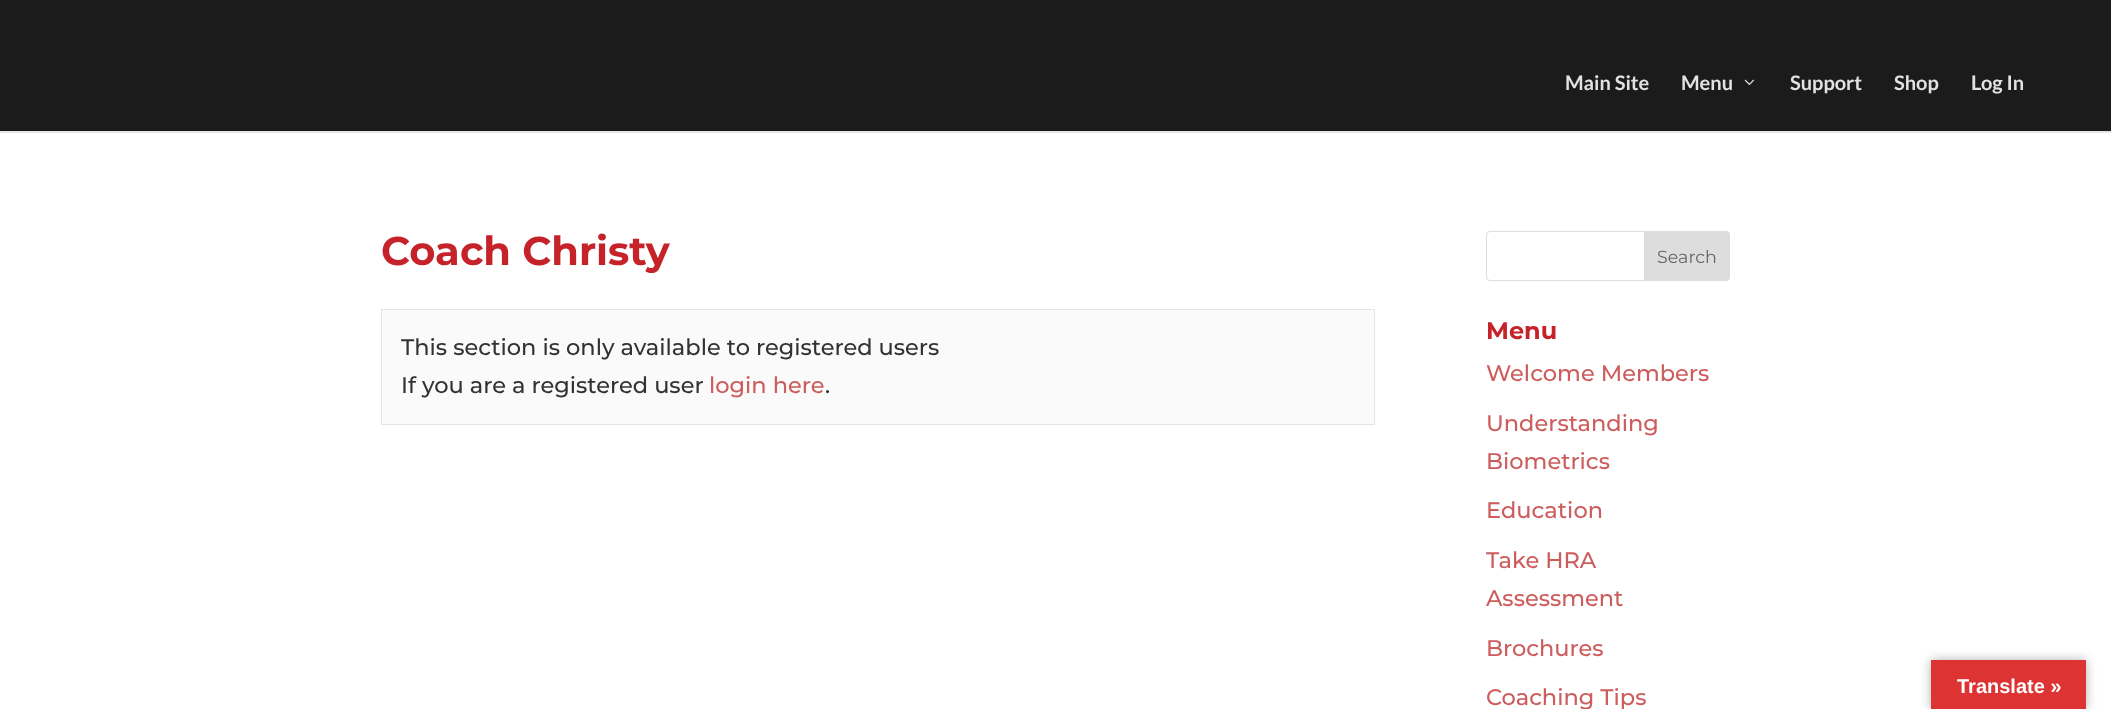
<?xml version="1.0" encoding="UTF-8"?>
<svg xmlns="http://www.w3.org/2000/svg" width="2111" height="709">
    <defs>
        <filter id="blur1" x="-50%" y="-200%" width="200%" height="500%"><feGaussianBlur stdDeviation="5.5"/></filter>
    </defs>
    <rect width="100%" height="100%" fill="#FFFFFF"/>
    <rect x="0" y="131" width="2111" height="2" fill="#E6E6E6"/>
    <rect x="0" y="0" width="2111" height="131" fill="#1B1B1B"/>
    <text x="1565" y="90" font-family="Lato" font-size="20" font-weight="700" fill="#E2E2E2">Main Site</text>
    <text x="1681" y="90" font-family="Lato" font-size="20" font-weight="700" fill="#E2E2E2">Menu</text>
    <image x="1744" y="79" width="10" height="6" href="img_01.png"/>
    <text x="1790" y="90" font-family="Lato" font-size="20" font-weight="700" fill="#E2E2E2">Support</text>
    <text x="1894" y="90" font-family="Lato" font-size="20" font-weight="700" fill="#E2E2E2">Shop</text>
    <text x="1971" y="90" font-family="Lato" font-size="20" font-weight="700" fill="#E2E2E2">Log In</text>
    <text x="381" y="265" font-family="Montserrat" font-size="40" font-weight="100" fill="#C5222A">Coach Christy</text>
    <rect x="381.5" y="309.5" width="993" height="115" fill="#FAFAFA" stroke="#E5E5E5"/>
    <text font-family="'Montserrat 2'" font-size="22.5" font-weight="100" fill="#323232">
        <tspan x="401" y="355">This section is only available to registered users</tspan>
        <tspan x="401" y="393">If you are a registered user</tspan>
    </text>
    <text x="709" y="393" font-family="'Montserrat 2'" font-size="22.5" font-weight="100" fill="#CD5C5C">login here</text>
    <text x="825" y="393" font-family="'Montserrat 2'" font-size="22.5" font-weight="100" fill="#323232">.</text>
    <rect x="1486.5" y="231.5" width="243" height="49" rx="3.5" fill="none" stroke="#DDDDDD"/>
    <path d="M 1644.5 231.5 H 1726 C 1728 231.5 1729.5 233 1729.5 235 V 277 C 1729.5 279 1728 280.5 1726 280.5 H 1644.5 Z" fill="#DDDDDD" stroke="#DDDDDD"/>
    <text x="1657" y="263" font-family="'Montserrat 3'" font-size="17.5" font-weight="100" fill="#666666">Search</text>
    <text x="1486" y="339" font-family="Montserrat" font-size="24" font-weight="100" fill="#C5222A">Menu</text>
    <text x="1486" y="381" font-family="'Montserrat 2'" font-size="22.5" font-weight="100" fill="#CD5C5C">Welcome Members</text>
    <text font-family="'Montserrat 2'" font-size="22.5" font-weight="100" fill="#CD5C5C">
        <tspan x="1486" y="431">Understanding</tspan>
        <tspan x="1486" y="469">Biometrics</tspan>
    </text>
    <text x="1486" y="518" font-family="'Montserrat 2'" font-size="22.5" font-weight="100" fill="#CD5C5C">Education</text>
    <text font-family="'Montserrat 2'" font-size="22.5" font-weight="100" fill="#CD5C5C">
        <tspan x="1486" y="568">Take HRA</tspan>
        <tspan x="1486" y="606">Assessment</tspan>
    </text>
    <text x="1486" y="656" font-family="'Montserrat 2'" font-size="22.5" font-weight="100" fill="#CD5C5C">Brochures</text>
    <text x="1486" y="705" font-family="'Montserrat 2'" font-size="22.5" font-weight="100" fill="#CD5C5C">Coaching Tips</text>
    <rect x="1931" y="660" width="155" height="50" fill="#000000" fill-opacity="0.3" filter="url(#blur1)"/>
    <rect x="1931" y="660" width="155" height="49" fill="#DD3333"/>
    <text x="1957" y="693" font-family="Liberation Sans" font-size="20" font-weight="700" fill="#FFFFFF">Translate »</text>
</svg>
